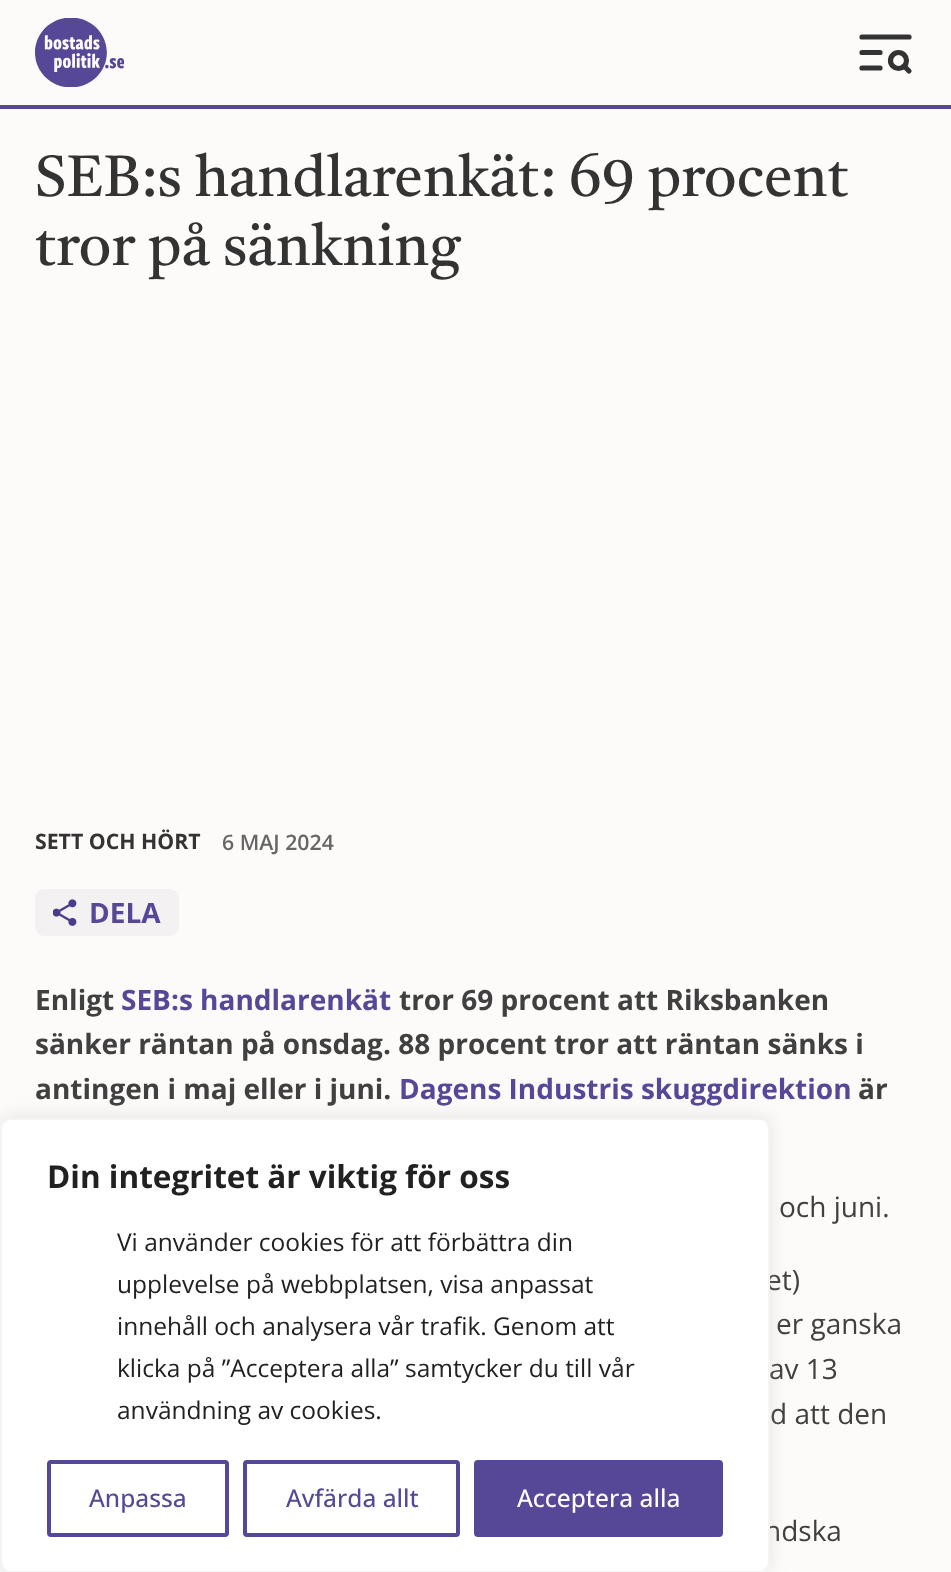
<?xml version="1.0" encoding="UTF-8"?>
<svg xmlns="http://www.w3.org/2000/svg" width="951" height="1572">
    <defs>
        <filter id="blur1" x="-50%" y="-200%" width="200%" height="500%"><feGaussianBlur stdDeviation="9"/></filter>
    </defs>
    <rect width="100%" height="100%" fill="#FDFBF9"/>
    <rect x="0" y="105" width="951" height="4" fill="#564797"/>
    <image x="35" y="18" width="89" height="69" href="img_01.png"/>
    <path d="M 909 37 H 862 M 880 52.5 H 862 M 880 68 H 862" fill="none" stroke="#333333" stroke-width="5.2" stroke-linecap="round" stroke-linejoin="round"/>
    <circle cx="898.5" cy="60.5" r="8" fill="none" stroke="#333333" stroke-width="5.2"/>
    <path d="M 909 71 L 904 66" fill="none" stroke="#333333" stroke-width="5.2" stroke-linecap="round" stroke-linejoin="round"/>
    <text font-family="Tiro Telugu" font-size="57.75" fill="#333333">
        <tspan x="35" y="196">SEB:s handlarenkät: 69 procent</tspan>
        <tspan x="35" y="265">tror på sänkning</tspan>
    </text>
    <text x="35" y="849" font-family="Open Sans" font-size="21.25" font-weight="700" fill="#333333">SETT OCH HÖRT</text>
    <text x="222" y="850" font-family="Open Sans" font-size="21.25" font-weight="600" fill="#666666">6 MAJ 2024</text>
    <rect x="35" y="889" width="144" height="47" rx="9" fill="#F4F1F3"/>
    <image x="53" y="899" width="24" height="27" href="img_02.png"/>
    <text x="89" y="923" font-family="Open Sans" font-size="28" font-weight="700" fill="#564797">DELA</text>
    <text x="35" y="1010" font-family="Open Sans" font-size="28" font-weight="700" fill="#404040">Enligt</text>
    <text x="121" y="1010" font-family="Open Sans" font-size="28" font-weight="700" fill="#564797">SEB:s handlarenkät</text>
    <text x="399" y="1010" font-family="Open Sans" font-size="28" font-weight="700" fill="#404040">tror 69 procent att Riksbanken</text>
    <text font-family="Open Sans" font-size="28" font-weight="700" fill="#404040">
        <tspan x="35" y="1054">sänker räntan på onsdag. 88 procent tror att räntan sänks i</tspan>
        <tspan x="35" y="1099">antingen i maj eller i juni.</tspan>
    </text>
    <text x="399" y="1099" font-family="Open Sans" font-size="28" font-weight="700" fill="#564797">Dagens Industris skuggdirektion</text>
    <text x="858" y="1099" font-family="Open Sans" font-size="28" font-weight="700" fill="#404040">är</text>
    <text x="779" y="1217" font-family="Open Sans" font-size="28" fill="#404040">och juni.</text>
    <text x="766" y="1290" font-family="Open Sans" font-size="28" fill="#404040">et)</text>
    <text x="776" y="1334" font-family="Open Sans" font-size="28" fill="#404040">er ganska</text>
    <text x="769" y="1379" font-family="Open Sans" font-size="28" fill="#404040">av 13</text>
    <text x="770" y="1424" font-family="Open Sans" font-size="28" fill="#404040">d att den</text>
    <text x="764" y="1541" font-family="Open Sans" font-size="28" fill="#404040">ndska</text>
    <rect x="0" y="1117" width="770" height="455" rx="11" fill="#ACABAB" fill-opacity="0.3" filter="url(#blur1)"/>
    <rect x="1" y="1119" width="768" height="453" rx="10" fill="#FFFFFF" stroke="#F4F4F4" stroke-width="2"/>
    <text x="47" y="1188" font-family="Open Sans" font-size="31.5" font-weight="700" fill="#212121">Din integritet är viktig för oss</text>
    <text font-family="Open Sans" font-size="24.5" fill="#212121">
        <tspan x="117" y="1251">Vi använder cookies för att förbättra din</tspan>
        <tspan x="117" y="1293">upplevelse på webbplatsen, visa anpassat</tspan>
        <tspan x="117" y="1335">innehåll och analysera vår trafik. Genom att</tspan>
        <tspan x="117" y="1377">klicka på ”Acceptera alla” samtycker du till vår</tspan>
        <tspan x="117" y="1419">användning av cookies.</tspan>
    </text>
    <rect x="49" y="1462" width="178" height="73" rx="2" fill="none" stroke="#564797" stroke-width="4"/>
    <text x="89" y="1507" font-family="Open Sans" font-size="24.5" font-weight="500" fill="#564797">Anpassa</text>
    <rect x="245" y="1462" width="213" height="73" rx="2" fill="none" stroke="#564797" stroke-width="4"/>
    <text x="286" y="1507" font-family="Open Sans" font-size="24.5" font-weight="500" fill="#564797">Avfärda allt</text>
    <rect x="476" y="1462" width="245" height="73" rx="2" fill="#564797" stroke="#564797" stroke-width="4"/>
    <text x="517" y="1507" font-family="Open Sans" font-size="24.5" font-weight="500" fill="#FFFFFF">Acceptera alla</text>
</svg>
